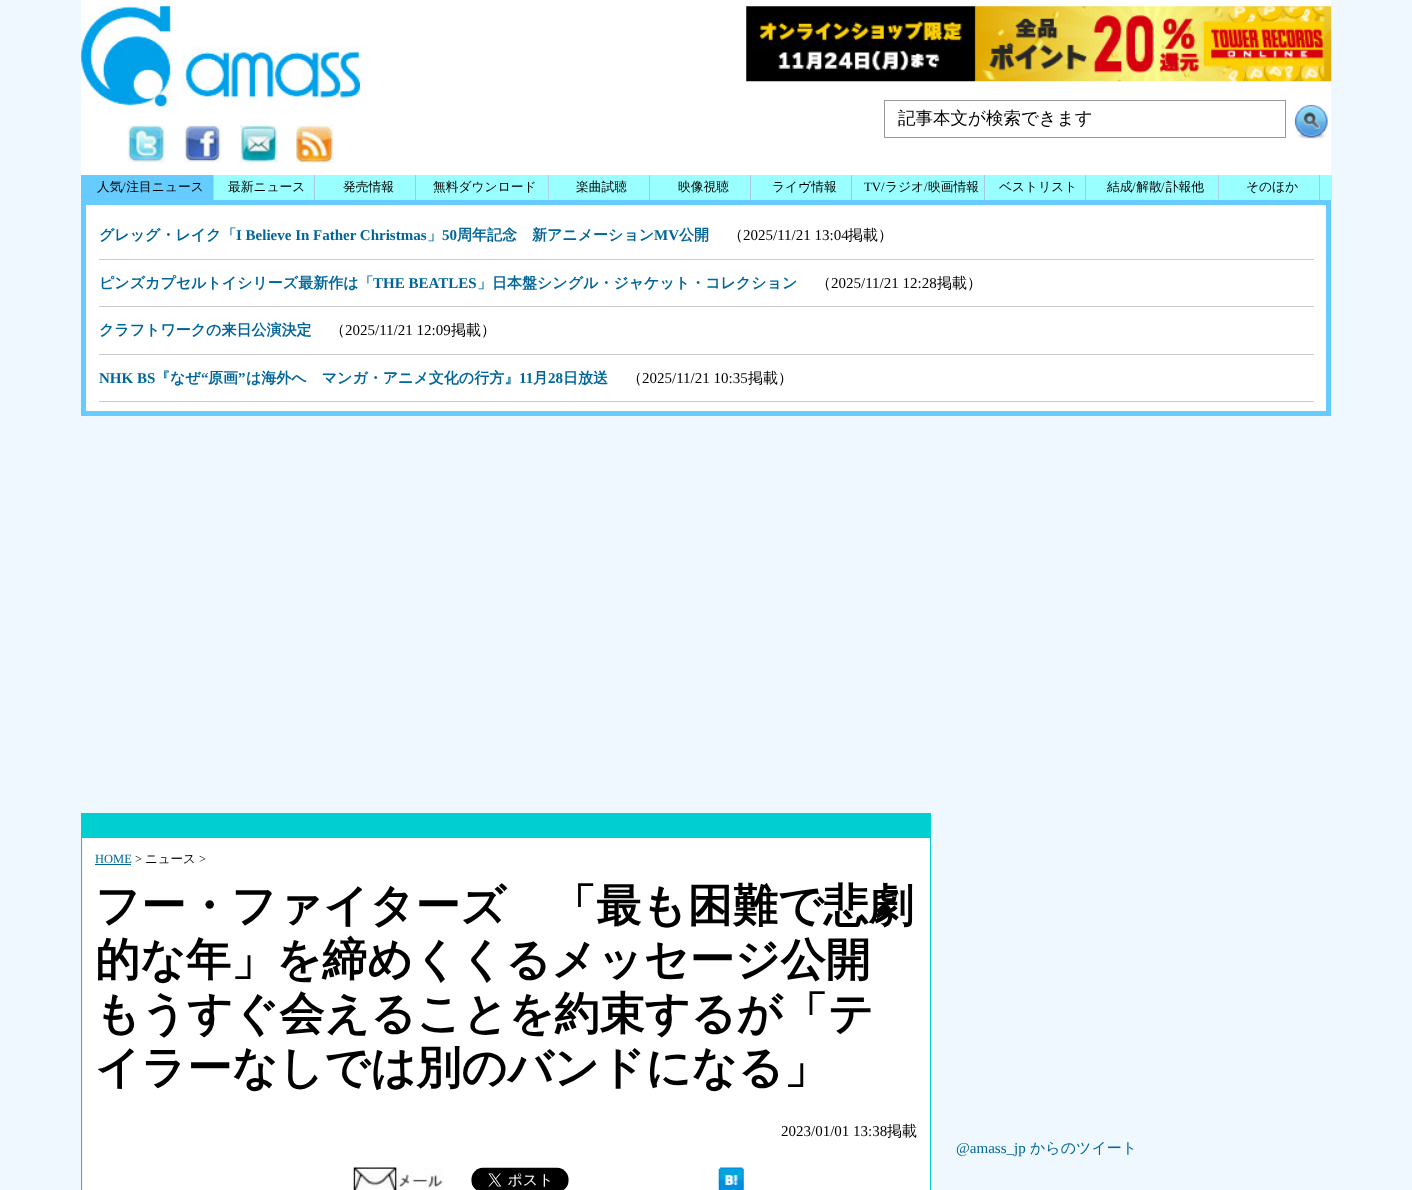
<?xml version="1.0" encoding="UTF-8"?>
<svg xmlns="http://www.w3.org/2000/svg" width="1412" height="1190">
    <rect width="100%" height="100%" fill="#F0F8FF"/>
    <rect x="81" y="0" width="1250" height="175" fill="#FFFFFF"/>
    <image x="81" y="6" width="279" height="101" href="img_01.png"/>
    <image x="127" y="125" width="38" height="38" href="img_02.png"/>
    <image x="183" y="125" width="39" height="38" href="img_03.png"/>
    <image x="240" y="125" width="38" height="38" href="img_04.png"/>
    <image x="296" y="125" width="38" height="38" href="img_05.png"/>
    <image x="746" y="6" width="586" height="76" href="img_06.png"/>
    <rect x="884.5" y="100.5" width="401" height="37" fill="none" stroke="#999999"/>
    <text x="898" y="124" font-family="WenQuanYi Zen Hei" font-size="17.5" font-weight="500" fill="#000000">記事本文が検索できます</text>
    <image x="1294" y="104" width="34" height="35" href="img_07.png"/>
    <rect x="214" y="175" width="1118" height="25" fill="#99FFFF"/>
    <rect x="81" y="175" width="132" height="25" fill="#66CCFF"/>
    <text x="97" y="191" font-family="WenQuanYi Zen Hei" font-size="12.75" font-weight="500" fill="#000000">人気 注目ニュース</text>
    <text x="122" y="191" font-family="Liberation Serif" font-size="12.75" fill="#000000">/</text>
    <rect x="213" y="175" width="1" height="25" fill="#AAD3E6"/>
    <rect x="314" y="175" width="1" height="25" fill="#B0C4DE"/>
    <text x="228" y="191" font-family="WenQuanYi Zen Hei" font-size="12.75" font-weight="500" fill="#000000">最新ニュース</text>
    <rect x="415" y="175" width="1" height="25" fill="#B0C4DE"/>
    <text x="343" y="191" font-family="WenQuanYi Zen Hei" font-size="12.75" font-weight="500" fill="#000000">発売情報</text>
    <text x="433" y="191" font-family="WenQuanYi Zen Hei" font-size="12.75" font-weight="500" fill="#000000">無料ダウンロード</text>
    <rect x="548" y="175" width="1" height="25" fill="#AAD3E6"/>
    <rect x="649" y="175" width="1" height="25" fill="#B0C4DE"/>
    <text x="576" y="191" font-family="WenQuanYi Zen Hei" font-size="12.75" font-weight="500" fill="#000000">楽曲試聴</text>
    <rect x="750" y="175" width="1" height="25" fill="#B0C4DE"/>
    <text x="678" y="191" font-family="WenQuanYi Zen Hei" font-size="12.75" font-weight="500" fill="#000000">映像視聴</text>
    <rect x="851" y="175" width="1" height="25" fill="#B0C4DE"/>
    <text x="772" y="191" font-family="WenQuanYi Zen Hei" font-size="12.75" font-weight="500" fill="#000000">ライヴ情報</text>
    <rect x="984" y="175" width="1" height="25" fill="#B0C4DE"/>
    <text x="864" y="191" font-family="Liberation Serif" font-size="12.75" fill="#000000">TV/</text>
    <text x="885" y="191" font-family="WenQuanYi Zen Hei" font-size="12.75" font-weight="500" fill="#000000">ラジオ 映画情報</text>
    <text x="924" y="191" font-family="Liberation Serif" font-size="12.75" fill="#000000">/</text>
    <rect x="1085" y="175" width="1" height="25" fill="#B0C4DE"/>
    <text x="999" y="191" font-family="WenQuanYi Zen Hei" font-size="12.75" font-weight="500" fill="#000000">ベストリスト</text>
    <text x="1107" y="191" font-family="WenQuanYi Zen Hei" font-size="12.75" font-weight="500" fill="#000000">結成 解散 訃報他</text>
    <text x="1132" y="191" font-family="Liberation Serif" font-size="12.75" fill="#000000">/</text>
    <text x="1161" y="191" font-family="Liberation Serif" font-size="12.75" fill="#000000">/</text>
    <rect x="1218" y="175" width="1" height="25" fill="#AAD3E6"/>
    <rect x="1319" y="175" width="1" height="25" fill="#B0C4DE"/>
    <text x="1246" y="191" font-family="WenQuanYi Zen Hei" font-size="12.75" font-weight="500" fill="#000000">そのほか</text>
    <rect x="83.5" y="202.5" width="1245" height="211" fill="#FFFFFF" stroke="#66CCFF" stroke-width="5"/>
    <rect x="99" y="259" width="1215" height="1" fill="#CCCCCC"/>
    <text x="99" y="240" font-family="WenQuanYi Zen Hei" font-size="15" font-weight="700" fill="#006699">グレッグ・レイク「</text>
    <text x="236" y="240" font-family="Liberation Serif" font-size="15" font-weight="700" fill="#006699">I Believe In Father Christmas</text>
    <text x="427" y="240" font-family="WenQuanYi Zen Hei" font-size="15" font-weight="700" fill="#006699">」</text>
    <text x="442" y="240" font-family="Liberation Serif" font-size="15" font-weight="700" fill="#006699">50</text>
    <text x="457" y="240" font-family="WenQuanYi Zen Hei" font-size="15" font-weight="700" fill="#006699">周年記念　新アニメーション</text>
    <text x="654" y="240" font-family="Liberation Serif" font-size="15" font-weight="700" fill="#006699">MV</text>
    <text x="679" y="240" font-family="WenQuanYi Zen Hei" font-size="15" font-weight="700" fill="#006699">公開</text>
    <text x="728" y="240" font-family="WenQuanYi Zen Hei" font-size="15" font-weight="500" fill="#000000">（</text>
    <text x="743" y="240" font-family="Liberation Serif" font-size="15" fill="#000000">2025/11/21 13:04</text>
    <text x="848" y="240" font-family="WenQuanYi Zen Hei" font-size="15" font-weight="500" fill="#000000">掲載）</text>
    <rect x="99" y="306" width="1215" height="1" fill="#CCCCCC"/>
    <text x="99" y="288" font-family="WenQuanYi Zen Hei" font-size="15" font-weight="700" fill="#006699">ピンズカプセルトイシリーズ最新作は「</text>
    <text x="373" y="288" font-family="Liberation Serif" font-size="15" font-weight="700" fill="#006699">THE BEATLES</text>
    <text x="477" y="288" font-family="WenQuanYi Zen Hei" font-size="15" font-weight="700" fill="#006699">」日本盤シングル・ジャケット・コレクション</text>
    <text x="816" y="288" font-family="WenQuanYi Zen Hei" font-size="15" font-weight="500" fill="#000000">（</text>
    <text x="831" y="288" font-family="Liberation Serif" font-size="15" fill="#000000">2025/11/21 12:28</text>
    <text x="937" y="288" font-family="WenQuanYi Zen Hei" font-size="15" font-weight="500" fill="#000000">掲載）</text>
    <rect x="99" y="354" width="1215" height="1" fill="#CCCCCC"/>
    <text x="99" y="335" font-family="WenQuanYi Zen Hei" font-size="15" font-weight="700" fill="#006699">クラフトワークの来日公演決定</text>
    <text x="330" y="335" font-family="WenQuanYi Zen Hei" font-size="15" font-weight="500" fill="#000000">（</text>
    <text x="345" y="335" font-family="Liberation Serif" font-size="15" fill="#000000">2025/11/21 12:09</text>
    <text x="451" y="335" font-family="WenQuanYi Zen Hei" font-size="15" font-weight="500" fill="#000000">掲載）</text>
    <rect x="99" y="401" width="1215" height="1" fill="#CCCCCC"/>
    <text x="99" y="383" font-family="Liberation Serif" font-size="15" font-weight="700" fill="#006699">NHK BS</text>
    <text x="155" y="383" font-family="WenQuanYi Zen Hei" font-size="15" font-weight="700" fill="#006699">『なぜ</text>
    <text x="201" y="383" font-family="Liberation Serif" font-size="15" font-weight="700" fill="#006699">“</text>
    <text x="208" y="383" font-family="WenQuanYi Zen Hei" font-size="15" font-weight="700" fill="#006699">原画</text>
    <text x="238" y="383" font-family="Liberation Serif" font-size="15" font-weight="700" fill="#006699">”</text>
    <text x="246" y="383" font-family="WenQuanYi Zen Hei" font-size="15" font-weight="700" fill="#006699">は海外へ　マンガ・アニメ文化の行方』</text>
    <text x="519" y="383" font-family="Liberation Serif" font-size="15" font-weight="700" fill="#006699">11</text>
    <text x="533" y="383" font-family="WenQuanYi Zen Hei" font-size="15" font-weight="700" fill="#006699">月</text>
    <text x="548" y="383" font-family="Liberation Serif" font-size="15" font-weight="700" fill="#006699">28</text>
    <text x="563" y="383" font-family="WenQuanYi Zen Hei" font-size="15" font-weight="700" fill="#006699">日放送</text>
    <text x="627" y="383" font-family="WenQuanYi Zen Hei" font-size="15" font-weight="500" fill="#000000">（</text>
    <text x="642" y="383" font-family="Liberation Serif" font-size="15" fill="#000000">2025/11/21 10:35</text>
    <text x="748" y="383" font-family="WenQuanYi Zen Hei" font-size="15" font-weight="500" fill="#000000">掲載）</text>
    <rect x="83" y="838" width="847" height="352" fill="#FFFFFF"/>
    <rect x="82" y="813" width="848" height="25" fill="#00CED1"/>
    <rect x="930" y="813" width="1" height="377" fill="#00CED1"/>
    <rect x="81" y="813" width="1" height="377" fill="#00CED1"/>
    <text x="95" y="863" font-family="Liberation Serif" font-size="12.5" fill="#006699">HOME</text>
    <rect x="95" y="864" width="36" height="1" fill="#006699"/>
    <text x="135" y="863" font-family="Liberation Serif" font-size="12.5" fill="#000000">&gt;</text>
    <text x="145" y="863" font-family="WenQuanYi Zen Hei" font-size="12.5" font-weight="500" fill="#000000">ニュース</text>
    <text x="199" y="863" font-family="Liberation Serif" font-size="12.5" fill="#000000">&gt;</text>
    <text font-family="WenQuanYi Zen Hei" font-size="45" font-weight="700" fill="#000000">
        <tspan x="95" y="921">フー・ファイターズ　「最も困難で悲劇</tspan>
        <tspan x="95" y="975">的な年」を締めくくるメッセージ公開</tspan>
        <tspan x="95" y="1029">もうすぐ会えることを約束するが「テ</tspan>
        <tspan x="95" y="1083">イラーなしでは別のバンドになる」</tspan>
    </text>
    <text x="781" y="1136" font-family="Liberation Serif" font-size="15" fill="#000000">2023/01/01 13:38</text>
    <text x="887" y="1136" font-family="WenQuanYi Zen Hei" font-size="15" font-weight="500" fill="#000000">掲載</text>
    <image x="353" y="1167" width="91" height="23" href="img_08.png"/>
    <image x="471" y="1167" width="98" height="23" href="img_09.png"/>
    <image x="718" y="1167" width="26" height="23" href="img_10.png"/>
    <text x="956" y="1153" font-family="Liberation Serif" font-size="15" fill="#006699">@amass_jp</text>
    <text x="1030" y="1153" font-family="WenQuanYi Zen Hei" font-size="15" font-weight="500" fill="#006699">からのツイート</text>
</svg>
